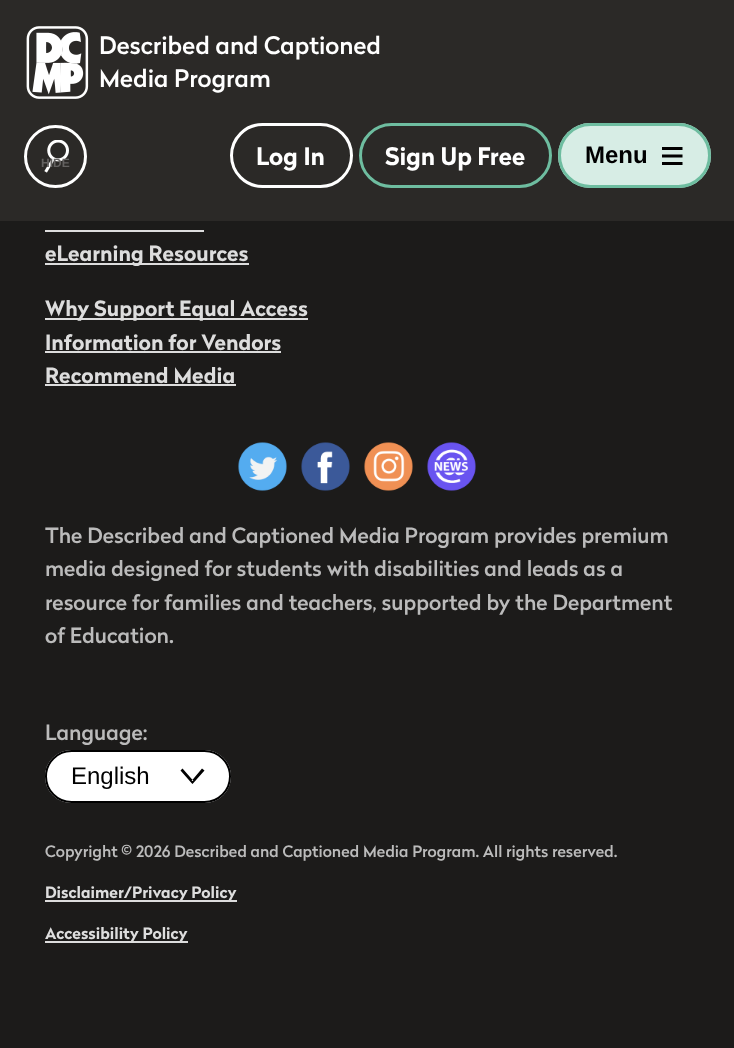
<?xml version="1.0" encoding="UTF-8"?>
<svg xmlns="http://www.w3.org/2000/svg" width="734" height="1048">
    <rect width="100%" height="100%" fill="#1C1B1A"/>
    <rect x="0" y="0" width="734" height="221" fill="#2B2927"/>
    <image x="26" y="26" width="63" height="73" href="img_01.png"/>
    <text font-family="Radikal" font-size="24" font-weight="500" fill="#FFFFFF">
        <tspan x="99" y="54">Described and Captioned</tspan>
        <tspan x="99" y="87">Media Program</tspan>
    </text>
    <image x="44" y="140" width="25" height="33" href="img_02.png"/>
    <circle cx="55.5" cy="156.5" r="30" fill="none" stroke="#FFFFFF" stroke-width="3"/>
    <text x="41" y="167" font-family="Liberation Sans" font-size="12" font-weight="700" fill="#646261">HIDE</text>
    <rect x="231.5" y="124.5" width="120" height="62" rx="31" fill="none" stroke="#FFFFFF" stroke-width="3"/>
    <text x="256" y="165" font-family="Radikal" font-size="24" font-weight="700" fill="#FFFFFF">Log In</text>
    <rect x="360.5" y="124.5" width="190" height="62" rx="31" fill="none" stroke="#6EBDA0" stroke-width="3"/>
    <text x="385" y="165" font-family="Radikal" font-size="24" font-weight="700" fill="#FFFFFF">Sign Up Free</text>
    <rect x="558" y="123" width="153" height="65" rx="32.5" fill="#D7EDE5"/>
    <path d="M 662 148.5 H 682.5 M 662 156 H 682.5 M 662 163.5 H 682.5" fill="none" stroke="#000000" stroke-width="3"/>
    <rect x="559.5" y="124.5" width="150" height="62" rx="31" fill="none" stroke="#6EBDA0" stroke-width="3"/>
    <text x="585" y="163" font-family="Liberation Sans" font-size="24" font-weight="700" fill="#000000">Menu</text>
    <rect x="45" y="230" width="159" height="2" fill="#DDDDDD"/>
    <rect x="45" y="263" width="204" height="2" fill="#DDDDDD"/>
    <text x="45" y="261" font-family="Radikal" font-size="21" font-weight="700" fill="#DDDDDD">eLearning Resources</text>
    <rect x="45" y="318" width="263" height="2" fill="#DDDDDD"/>
    <text font-family="Radikal" font-size="21" font-weight="700" fill="#DDDDDD">
        <tspan x="45" y="316">Why Support Equal Access</tspan>
        <tspan x="45" y="350">Information for Vendors</tspan>
    </text>
    <rect x="45" y="351" width="236" height="2" fill="#DDDDDD"/>
    <text x="45" y="383" font-family="Radikal" font-size="21" font-weight="700" fill="#DDDDDD">Recommend Media</text>
    <rect x="45" y="384" width="191" height="2" fill="#DDDDDD"/>
    <image x="238" y="442" width="49" height="49" href="img_03.png"/>
    <image x="301" y="442" width="49" height="49" href="img_04.png"/>
    <image x="364" y="442" width="49" height="49" href="img_05.png"/>
    <image x="427" y="442" width="49" height="49" href="img_06.png"/>
    <text font-family="Radikal" font-size="21" font-weight="500" fill="#BBBBBB">
        <tspan x="45" y="543">The Described and Captioned Media Program provides premium</tspan>
        <tspan x="45" y="576">media designed for students with disabilities and leads as a</tspan>
        <tspan x="45" y="610">resource for families and teachers, supported by the Department</tspan>
        <tspan x="45" y="643">of Education.</tspan>
    </text>
    <text x="45" y="740" font-family="Radikal" font-size="21" font-weight="500" fill="#BBBBBB">Language:</text>
    <rect x="45" y="750" width="186" height="53" rx="26.5" fill="#FFFFFF"/>
    <path d="M 191.5 783 L 192.5 784 L 204.5 770.5 L 202 768.5 L 191.5 781 H 193.5 L 182.5 768.5 L 180.5 770.5 Z" fill="#010101" fill-rule="evenodd"/>
    <rect x="46" y="751" width="184" height="51" rx="25.5" fill="none" stroke="#000000" stroke-width="2"/>
    <text x="71" y="784" font-family="Liberation Sans" font-size="24" fill="#000000">English</text>
    <text x="45" y="857" font-family="Radikal" font-size="15.75" font-weight="500" fill="#BBBBBB">Copyright © 2026 Described and Captioned Media Program. All rights reserved.</text>
    <rect x="45" y="900" width="192" height="2" fill="#DDDDDD"/>
    <text x="45" y="898" font-family="Radikal" font-size="15.75" font-weight="700" fill="#DDDDDD">Disclaimer/Privacy Policy</text>
    <rect x="45" y="941" width="143" height="2" fill="#DDDDDD"/>
    <text x="45" y="939" font-family="Radikal" font-size="15.75" font-weight="700" fill="#DDDDDD">Accessibility Policy</text>
</svg>
